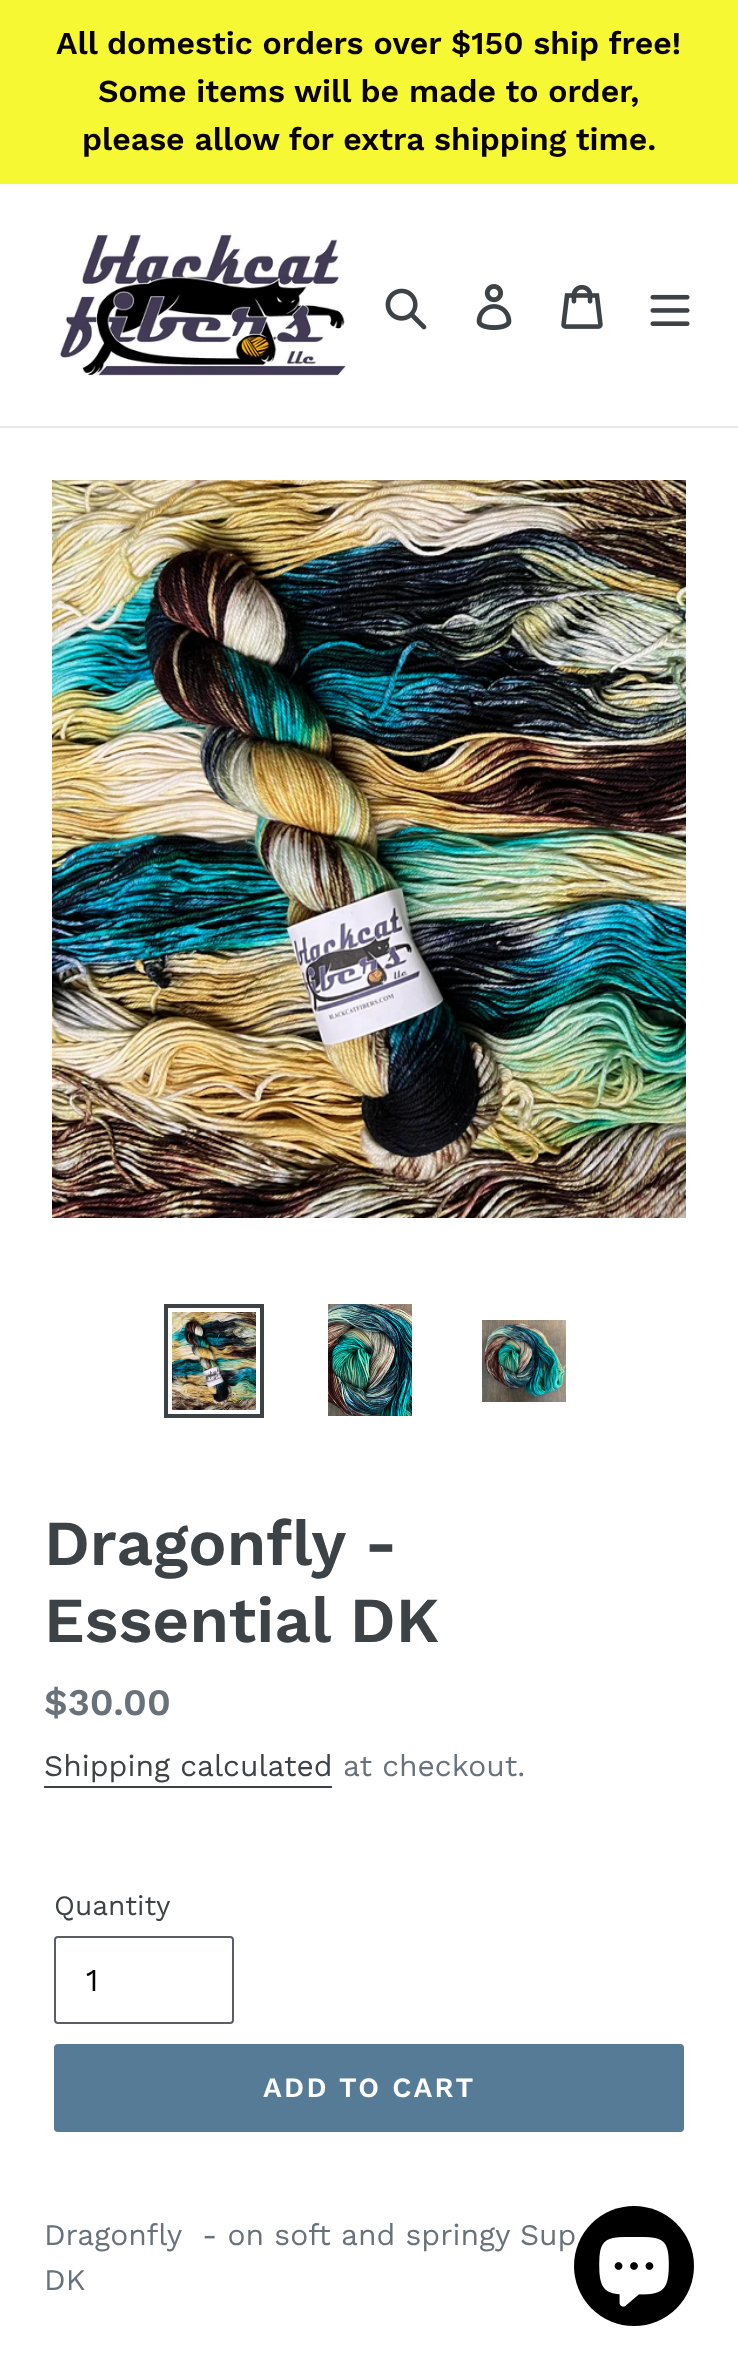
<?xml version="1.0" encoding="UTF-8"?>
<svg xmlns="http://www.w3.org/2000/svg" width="738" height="2368">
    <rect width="100%" height="100%" fill="#FFFFFF"/>
    <rect x="0" y="0" width="738" height="184" fill="#F6F834"/>
    <text x="56" y="54" font-family="Work Sans" font-size="32" font-weight="600" fill="#080000">All domestic orders over $150 ship free!</text>
    <text x="98" y="102" font-family="Work Sans" font-size="32" font-weight="600" fill="#080000">Some items will be made to order,</text>
    <text x="82" y="150" font-family="Work Sans" font-size="32" font-weight="600" fill="#080000">please allow for extra shipping time.</text>
    <rect x="0" y="426" width="738" height="2" fill="#E8E9EB"/>
    <image x="58" y="234" width="288" height="143" href="img_01.png"/>
    <image x="385" y="288" width="42" height="42" href="img_02.png"/>
    <image x="476" y="284" width="36" height="46" href="img_03.png"/>
    <image x="561" y="284" width="42" height="45" href="img_04.png"/>
    <image x="650" y="294" width="40" height="32" href="img_05.png"/>
    <image x="52" y="480" width="634" height="738" href="img_06.png"/>
    <rect x="166" y="1306" width="96" height="110" fill="none" stroke="#3D4246" stroke-width="4"/>
    <image x="172" y="1312" width="84" height="98" href="img_07.png"/>
    <image x="328" y="1304" width="84" height="112" href="img_08.png"/>
    <image x="482" y="1320" width="84" height="82" href="img_09.png"/>
    <text font-family="Work Sans" font-size="64" font-weight="600" fill="#3D4246">
        <tspan x="44" y="1565">Dragonfly -</tspan>
        <tspan x="44" y="1642">Essential DK</tspan>
    </text>
    <text x="44" y="1715" font-family="Work Sans" font-size="37.5" font-weight="600" fill="#69727B">$30.00</text>
    <text x="44" y="1776" font-family="Work Sans" font-size="30" fill="#3D4246">Shipping calculated</text>
    <rect x="44" y="1786" width="288" height="2" fill="#3D4246"/>
    <text x="343" y="1776" font-family="Work Sans" font-size="30" fill="#69727B">at checkout.</text>
    <text x="54" y="1915" font-family="Work Sans" font-size="28" fill="#3D4246">Quantity</text>
    <rect x="55" y="1937" width="178" height="86" rx="3" fill="none" stroke="#5A5E62" stroke-width="2"/>
    <text x="86" y="1991" font-family="Work Sans" font-size="32" fill="#000000">1</text>
    <rect x="54" y="2044" width="630" height="88" rx="4" fill="#557B97"/>
    <text x="263" y="2097" font-family="Work Sans" font-size="28" font-weight="600" letter-spacing="2.25" fill="#FFFFFF">ADD TO CART</text>
    <text font-family="Work Sans" font-size="30" fill="#69727B" xml:space="preserve"><tspan x="44" y="2245">Dragonfly  - on soft and springy Sup</tspan><tspan x="44" y="2290">DK</tspan></text>
    <circle cx="634" cy="2266" r="60" fill="#000000"/>
    <image x="599" y="2237" width="70" height="70" href="img_10.png"/>
</svg>
